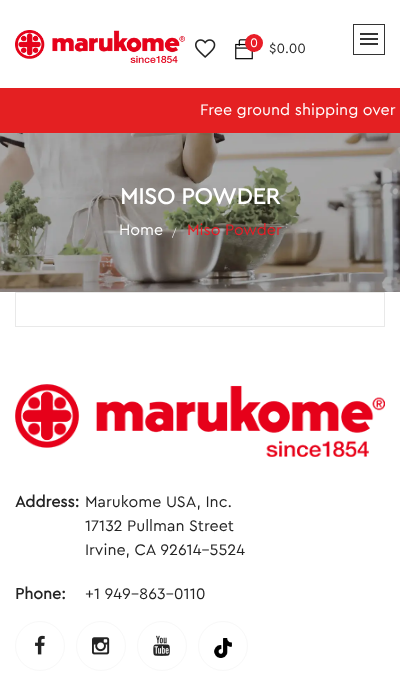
<?xml version="1.0" encoding="UTF-8"?>
<svg xmlns="http://www.w3.org/2000/svg" width="400" height="679">
    <rect width="100%" height="100%" fill="#FFFFFF"/>
    <image x="15" y="30" width="170" height="33" href="img_01.png"/>
    <image x="195" y="39" width="21" height="19" href="img_02.png"/>
    <image x="235" y="39" width="18" height="21" href="img_03.png"/>
    <circle cx="254" cy="43" r="9" fill="#E91D27"/>
    <text x="250" y="47" font-family="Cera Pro" font-size="13" fill="#FFFFFF">0</text>
    <text x="269" y="53" font-family="Cera Pro" font-size="14" fill="#242424">$0.00</text>
    <rect x="353.5" y="24.5" width="31" height="30" fill="none" stroke="#333333"/>
    <rect x="360" y="33" width="18" height="2" fill="#333333"/>
    <rect x="360" y="38" width="18" height="2" fill="#333333"/>
    <rect x="360" y="43" width="18" height="2" fill="#333333"/>
    <rect x="0" y="88" width="400" height="45" fill="#E42022"/>
    <text x="200" y="115" font-family="Cera Pro" font-size="16" fill="#FFFFFF">Free ground shipping over</text>
    <image x="0" y="133" width="400" height="159" href="img_04.png"/>
    <text x="120" y="204" font-family="Cera Pro" font-size="23" font-weight="700" fill="#FFFFFF">MISO POWDER</text>
    <text x="119" y="235" font-family="Cera Pro" font-size="16" fill="#FFFFFF">Home</text>
    <path d="M 172 237.5 L 176 227.5 H 176.5 L 172.5 238 Z" fill="#FFFFFF"/>
    <text x="187" y="235" font-family="Cera Pro" font-size="16" fill="#E91D27">Miso Powder</text>
    <rect x="15.5" y="292.5" width="369" height="34" fill="none" stroke="#E9E9E9"/>
    <image x="15" y="384" width="370" height="73" href="img_05.png"/>
    <text x="15" y="507" font-family="Cera Pro" font-size="16" font-weight="700" fill="#242424">Address:</text>
    <text font-family="Cera Pro" font-size="16" fill="#242424">
        <tspan x="85" y="507">Marukome USA, Inc.</tspan>
        <tspan x="85" y="531">17132 Pullman Street</tspan>
        <tspan x="85" y="555">Irvine, CA 92614-5524</tspan>
    </text>
    <text x="15" y="599" font-family="Cera Pro" font-size="16" font-weight="700" fill="#242424">Phone:</text>
    <text x="85" y="599" font-family="Cera Pro" font-size="16" fill="#242424">+1 949-863-0110</text>
    <circle cx="40" cy="646" r="24.5" fill="none" stroke="#F8F8F8"/>
    <image x="35" y="635" width="10" height="20" href="img_06.png"/>
    <circle cx="101" cy="646" r="24.5" fill="none" stroke="#F8F8F8"/>
    <image x="92" y="637" width="18" height="18" href="img_07.png"/>
    <circle cx="162" cy="646" r="24.5" fill="none" stroke="#F8F8F8"/>
    <image x="153" y="635" width="17" height="21" href="img_08.png"/>
    <circle cx="223" cy="646" r="24.5" fill="none" stroke="#F8F8F8"/>
    <image x="214" y="638" width="18" height="20" href="img_09.png"/>
</svg>
